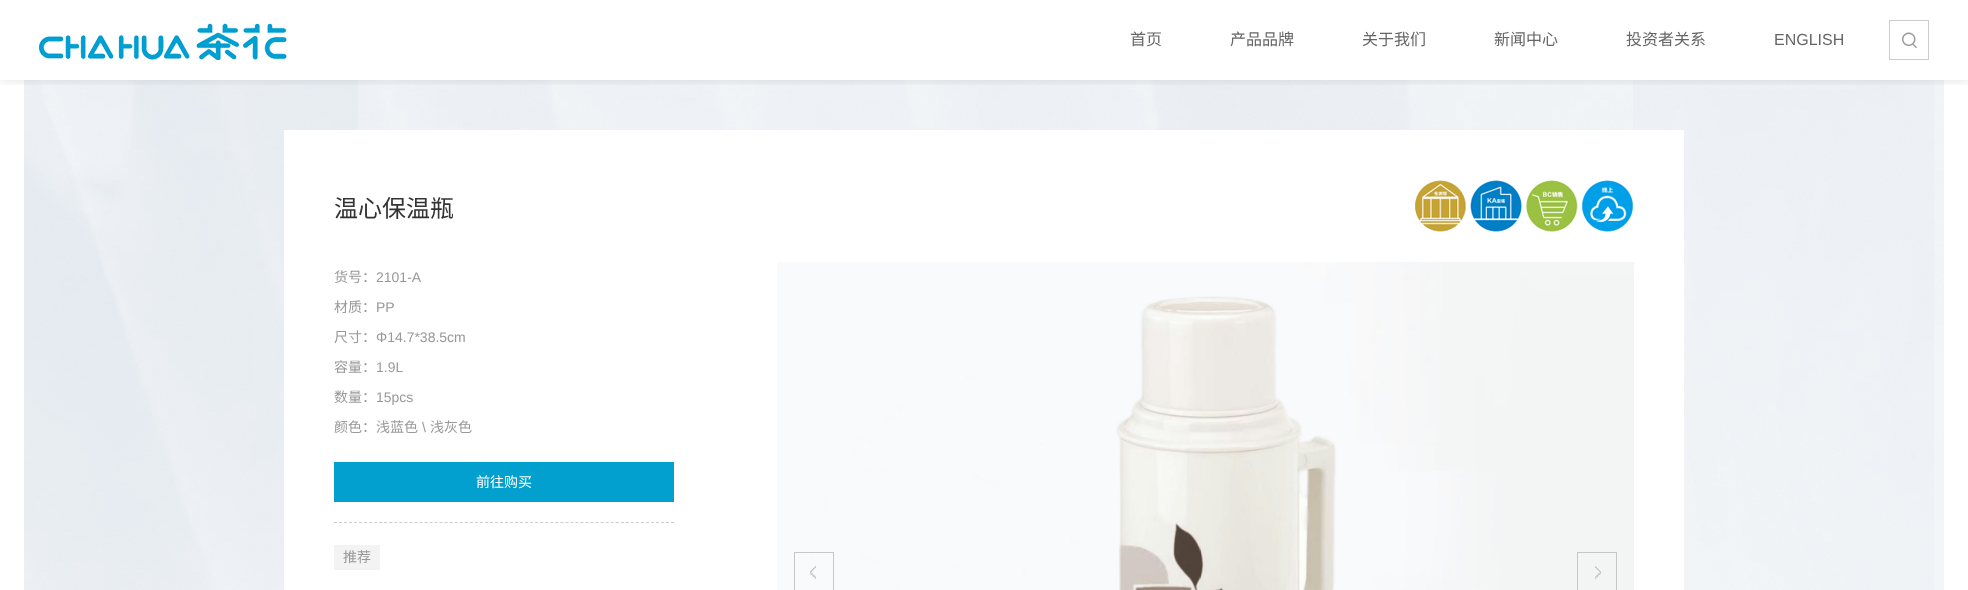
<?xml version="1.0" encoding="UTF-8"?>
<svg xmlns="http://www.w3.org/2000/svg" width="1968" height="590">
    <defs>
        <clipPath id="clip1"><rect x="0" y="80" width="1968" height="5"/></clipPath>
        <filter id="blur1" x="-50%" y="-200%" width="200%" height="500%"><feGaussianBlur stdDeviation="5"/></filter>
    </defs>
    <rect width="100%" height="100%" fill="#FFFFFF"/>
    <image x="24" y="80" width="1920" height="510" href="img_03.png"/>
    <g clip-path="url(#clip1)">
        <rect x="1" y="1" width="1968" height="80" fill="#000000" fill-opacity="0.1" filter="url(#blur1)"/>
    </g>
    <image x="39" y="23" width="248" height="37" href="img_01.png"/>
    <text x="1130" y="45" font-family="Noto Sans CJK SC" font-size="16" fill="#666666">首页</text>
    <text x="1230" y="45" font-family="Noto Sans CJK SC" font-size="16" fill="#666666">产品品牌</text>
    <text x="1362" y="45" font-family="Noto Sans CJK SC" font-size="16" fill="#666666">关于我们</text>
    <text x="1494" y="45" font-family="Noto Sans CJK SC" font-size="16" fill="#666666">新闻中心</text>
    <text x="1626" y="45" font-family="Noto Sans CJK SC" font-size="16" fill="#666666">投资者关系</text>
    <text x="1774" y="45" font-family="Liberation Sans" font-size="16" fill="#666666">ENGLISH</text>
    <image x="1889" y="20" width="40" height="40" href="img_02.png"/>
    <rect x="284" y="130" width="1400" height="460" fill="#FFFFFF"/>
    <text x="334" y="217" font-family="Noto Sans CJK SC" font-size="24" fill="#333333">温心保温瓶</text>
    <image x="1415" y="180" width="51" height="52" href="img_04.png"/>
    <image x="1470" y="180" width="52" height="52" href="img_05.png"/>
    <image x="1526" y="180" width="52" height="52" href="img_06.png"/>
    <image x="1582" y="180" width="51" height="52" href="img_07.png"/>
    <text x="334" y="282" font-family="Noto Sans CJK SC" font-size="14" fill="#999999">货号：</text>
    <text x="376" y="282" font-family="Liberation Sans" font-size="14" fill="#999999">2101-A</text>
    <text x="334" y="312" font-family="Noto Sans CJK SC" font-size="14" fill="#999999">材质：</text>
    <text x="376" y="312" font-family="Liberation Sans" font-size="14" fill="#999999">PP</text>
    <text x="334" y="342" font-family="Noto Sans CJK SC" font-size="14" fill="#999999">尺寸：</text>
    <text x="376" y="342" font-family="Liberation Sans" font-size="14" fill="#999999">Φ14.7*38.5cm</text>
    <text x="334" y="372" font-family="Noto Sans CJK SC" font-size="14" fill="#999999">容量：</text>
    <text x="376" y="372" font-family="Liberation Sans" font-size="14" fill="#999999">1.9L</text>
    <text x="334" y="402" font-family="Noto Sans CJK SC" font-size="14" fill="#999999">数量：</text>
    <text x="376" y="402" font-family="Liberation Sans" font-size="14" fill="#999999">15pcs</text>
    <text x="334" y="432" font-family="Noto Sans CJK SC" font-size="14" fill="#999999">颜色：浅蓝色</text>
    <text x="422" y="432" font-family="Liberation Sans" font-size="14" fill="#999999">\</text>
    <text x="430" y="432" font-family="Noto Sans CJK SC" font-size="14" fill="#999999">浅灰色</text>
    <path d="M 334 522.5 H 674" fill="none" stroke="#CCCCCC" stroke-dasharray="3 2.03"/>
    <rect x="334" y="462" width="340" height="40" fill="#02A0CF"/>
    <text x="476" y="487" font-family="Noto Sans CJK SC" font-size="14" fill="#FFFFFF">前往购买</text>
    <rect x="334" y="545" width="46" height="25" fill="#F3F3F3"/>
    <text x="343" y="562" font-family="Noto Sans CJK SC" font-size="14" fill="#999999">推荐</text>
    <image x="777" y="262" width="857" height="328" href="img_08.png"/>
    <image x="794" y="552" width="40" height="38" href="img_09.png"/>
    <image x="1577" y="552" width="40" height="38" href="img_10.png"/>
</svg>
